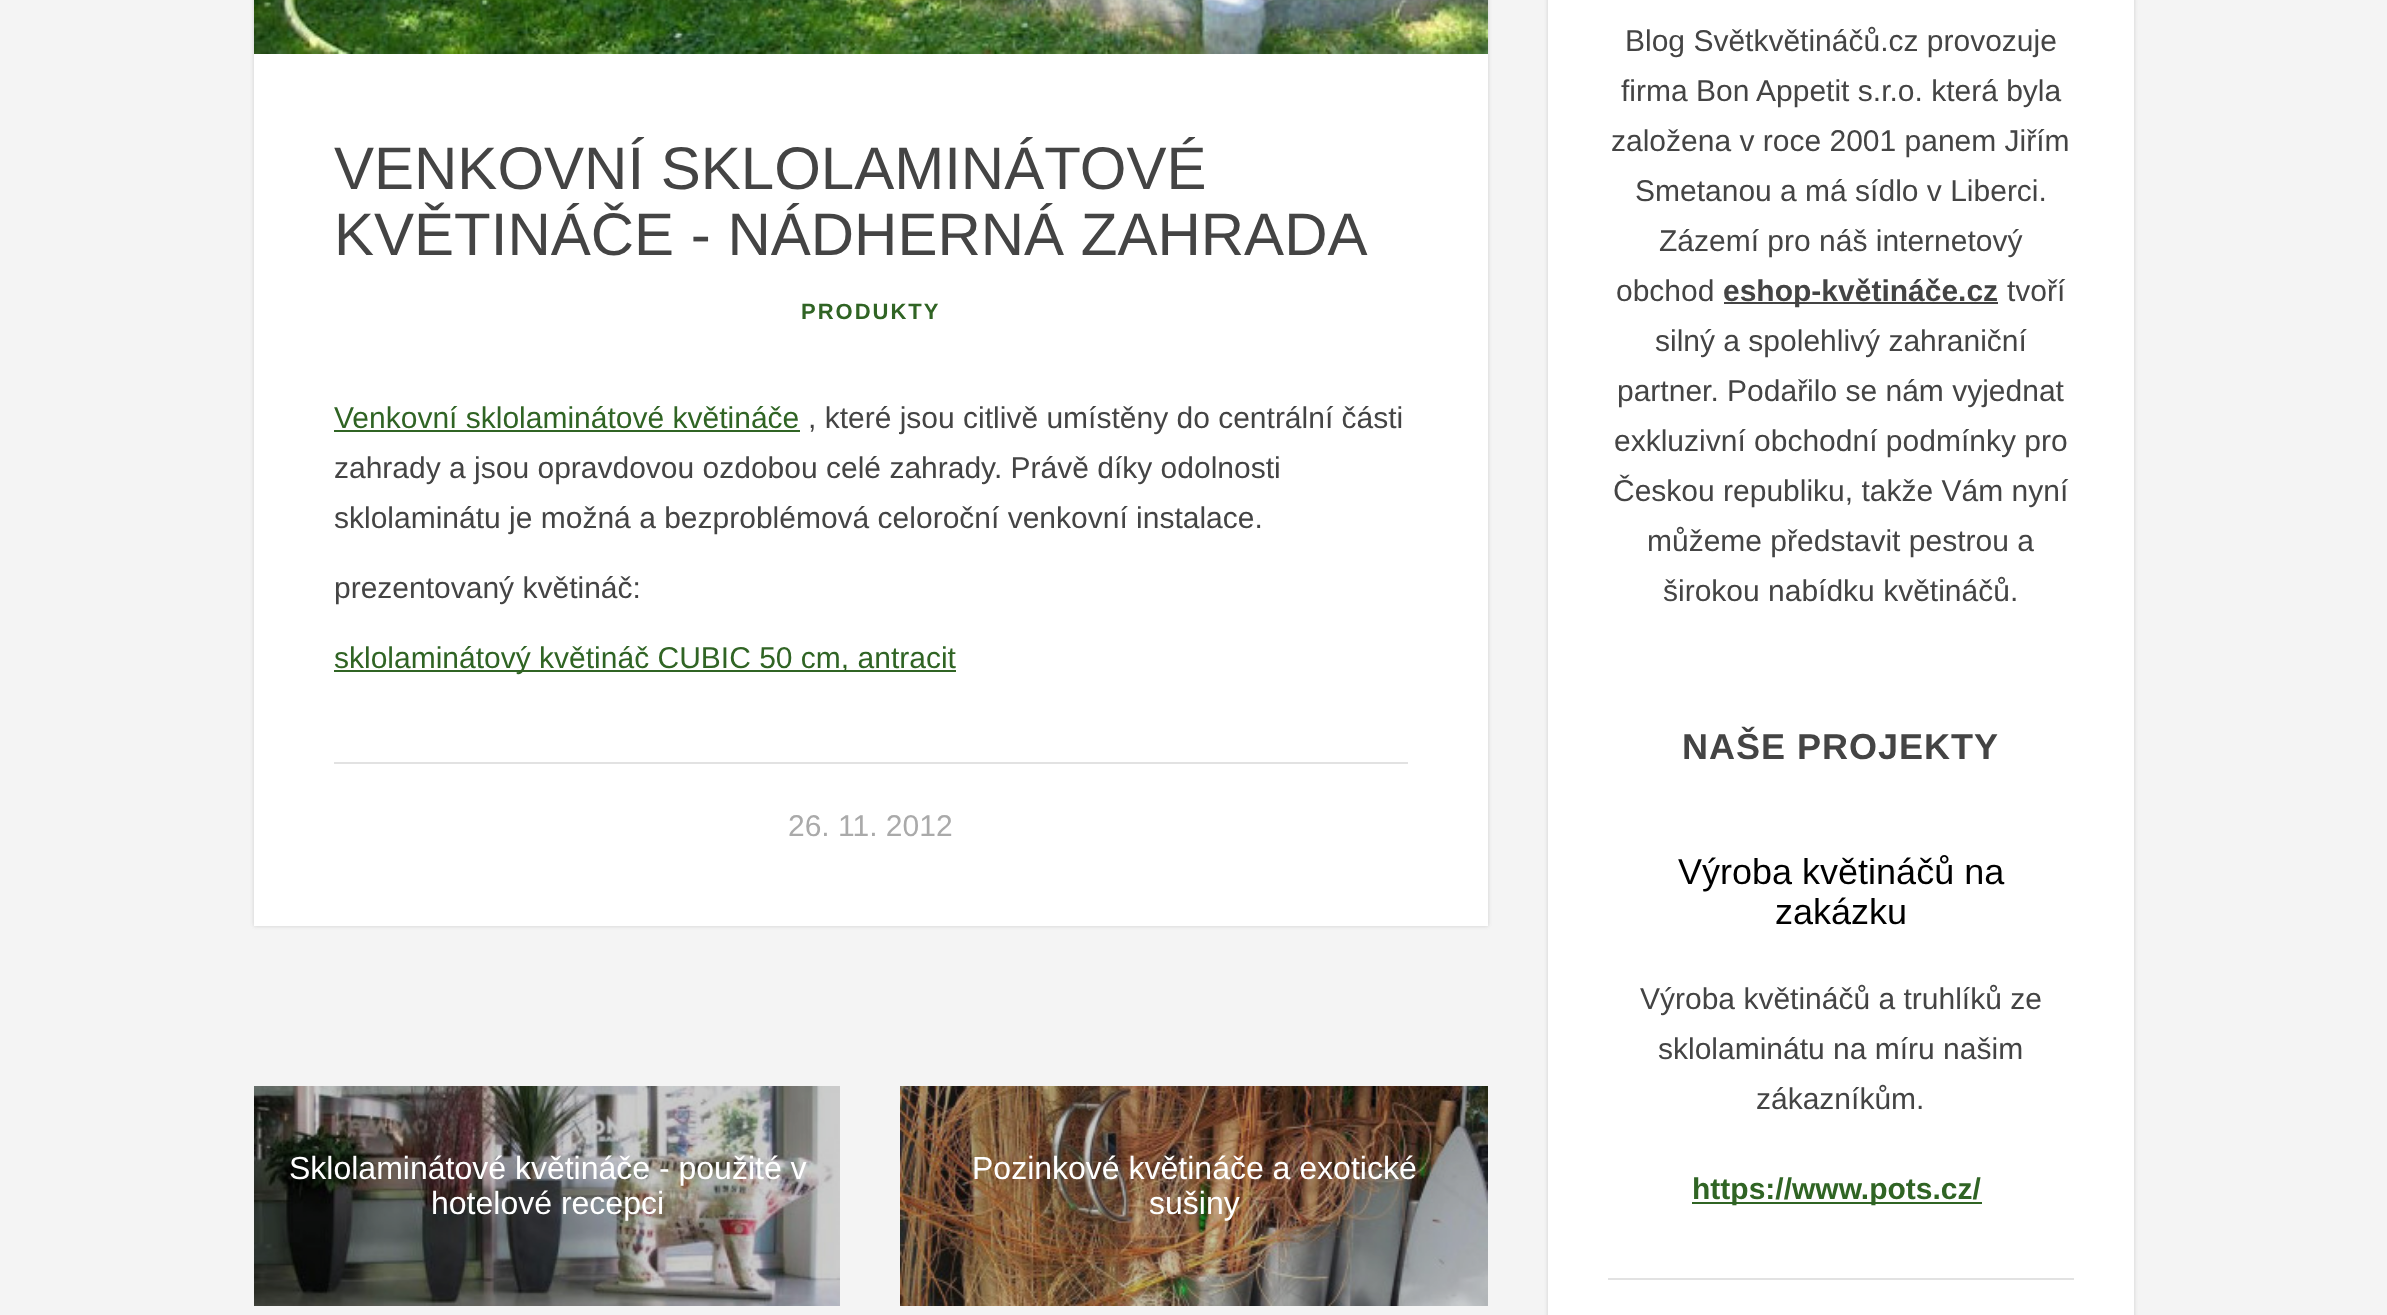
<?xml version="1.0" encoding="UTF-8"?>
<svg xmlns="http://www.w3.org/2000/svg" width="2387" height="1315">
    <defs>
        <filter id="blur1" x="-50%" y="-200%" width="200%" height="500%"><feGaussianBlur stdDeviation="2"/></filter>
    </defs>
    <rect width="100%" height="100%" fill="#F4F4F4"/>
    <rect x="254" y="-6" width="1234" height="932" fill="#333333" fill-opacity="0.08" filter="url(#blur1)"/>
    <rect x="254" y="-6" width="1234" height="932" fill="#333333" fill-opacity="0.08" filter="url(#blur1)"/>
    <rect x="254" y="54" width="1234" height="872" fill="#FFFFFF"/>
    <image x="254" y="0" width="1234" height="54" href="img_01.png"/>
    <text font-family="Liberation Sans" font-size="60" fill="#444444">
        <tspan x="334" y="189">VENKOVNÍ SKLOLAMINÁTOVÉ</tspan>
        <tspan x="334" y="255">KVĚTINÁČE - NÁDHERNÁ ZAHRADA</tspan>
    </text>
    <text x="801" y="319" font-family="Liberation Sans" font-size="22" font-weight="700" letter-spacing="2" fill="#306424">PRODUKTY</text>
    <text x="334" y="428" font-family="Liberation Sans" font-size="30" fill="#306424">Venkovní sklolaminátové květináče</text>
    <rect x="334" y="430" width="466" height="2" fill="#306424"/>
    <text x="808" y="428" font-family="Liberation Sans" font-size="30" fill="#444444">, které jsou citlivě umístěny do centrální části</text>
    <text font-family="Liberation Sans" font-size="30" fill="#444444">
        <tspan x="334" y="478">zahrady a jsou opravdovou ozdobou celé zahrady. Právě díky odolnosti</tspan>
        <tspan x="334" y="528">sklolaminátu je možná a bezproblémová celoroční venkovní instalace.</tspan>
    </text>
    <text x="334" y="598" font-family="Liberation Sans" font-size="30" fill="#444444">prezentovaný květináč:</text>
    <rect x="334" y="670" width="622" height="2" fill="#306424"/>
    <text x="334" y="668" font-family="Liberation Sans" font-size="30" fill="#306424">sklolaminátový květináč CUBIC 50 cm, antracit</text>
    <rect x="334" y="762" width="1074" height="2" fill="#E2E2E2"/>
    <text x="788" y="836" font-family="Liberation Sans" font-size="30" fill="#AAAAAA">26. 11. 2012</text>
    <image x="254" y="1086" width="586" height="220" href="img_02.png"/>
    <text x="289" y="1179" font-family="Liberation Sans" font-size="32" fill="#FFFFFF">Sklolaminátové květináče - použité v</text>
    <text x="431" y="1214" font-family="Liberation Sans" font-size="32" fill="#FFFFFF">hotelové recepci</text>
    <image x="900" y="1086" width="588" height="220" href="img_03.png"/>
    <text x="972" y="1179" font-family="Liberation Sans" font-size="32" fill="#FFFFFF">Pozinkové květináče a exotické</text>
    <text x="1149" y="1214" font-family="Liberation Sans" font-size="32" fill="#FFFFFF">sušiny</text>
    <rect x="1548" y="-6" width="586" height="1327" fill="#333333" fill-opacity="0.08" filter="url(#blur1)"/>
    <rect x="1548" y="-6" width="586" height="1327" fill="#333333" fill-opacity="0.08" filter="url(#blur1)"/>
    <rect x="1548" y="0" width="586" height="1315" fill="#FFFFFF"/>
    <text x="1625" y="51" font-family="Liberation Sans" font-size="30" fill="#444444">Blog Světkvětináčů.cz provozuje</text>
    <text x="1621" y="101" font-family="Liberation Sans" font-size="30" fill="#444444">firma Bon Appetit s.r.o. která byla</text>
    <text x="1611" y="151" font-family="Liberation Sans" font-size="30" fill="#444444">založena v roce 2001 panem Jiřím</text>
    <text x="1635" y="201" font-family="Liberation Sans" font-size="30" fill="#444444">Smetanou a má sídlo v Liberci.</text>
    <text x="1659" y="251" font-family="Liberation Sans" font-size="30" fill="#444444">Zázemí pro náš internetový</text>
    <text x="1616" y="301" font-family="Liberation Sans" font-size="30" fill="#444444">obchod</text>
    <rect x="1724" y="302" width="274" height="2" fill="#444444"/>
    <text x="1723" y="301" font-family="Liberation Sans" font-size="30" font-weight="700" fill="#444444">eshop-květináče.cz</text>
    <text x="2007" y="301" font-family="Liberation Sans" font-size="30" fill="#444444">tvoří</text>
    <text x="1655" y="351" font-family="Liberation Sans" font-size="30" fill="#444444">silný a spolehlivý zahraniční</text>
    <text x="1617" y="401" font-family="Liberation Sans" font-size="30" fill="#444444">partner. Podařilo se nám vyjednat</text>
    <text x="1614" y="451" font-family="Liberation Sans" font-size="30" fill="#444444">exkluzivní obchodní podmínky pro</text>
    <text x="1613" y="501" font-family="Liberation Sans" font-size="30" fill="#444444">Českou republiku, takže Vám nyní</text>
    <text x="1647" y="551" font-family="Liberation Sans" font-size="30" fill="#444444">můžeme představit pestrou a</text>
    <text x="1663" y="601" font-family="Liberation Sans" font-size="30" fill="#444444">širokou nabídku květináčů.</text>
    <text x="1682" y="759" font-family="Liberation Sans" font-size="36" font-weight="700" letter-spacing="1" fill="#444444">NAŠE PROJEKTY</text>
    <rect x="1608" y="1278" width="466" height="2" fill="#E2E2E2"/>
    <text x="1678" y="884" font-family="Liberation Sans" font-size="36" fill="#000000">Výroba květináčů na</text>
    <text x="1775" y="924" font-family="Liberation Sans" font-size="36" fill="#000000">zakázku</text>
    <text x="1640" y="1009" font-family="Liberation Sans" font-size="30" fill="#444444">Výroba květináčů a truhlíků ze</text>
    <text x="1658" y="1059" font-family="Liberation Sans" font-size="30" fill="#444444">sklolaminátu na míru našim</text>
    <text x="1756" y="1109" font-family="Liberation Sans" font-size="30" fill="#444444">zákazníkům.</text>
    <rect x="1692" y="1202" width="290" height="2" fill="#306424"/>
    <text x="1692" y="1199" font-family="Liberation Sans" font-size="30" font-weight="700" fill="#306424">https://www.pots.cz/</text>
</svg>
